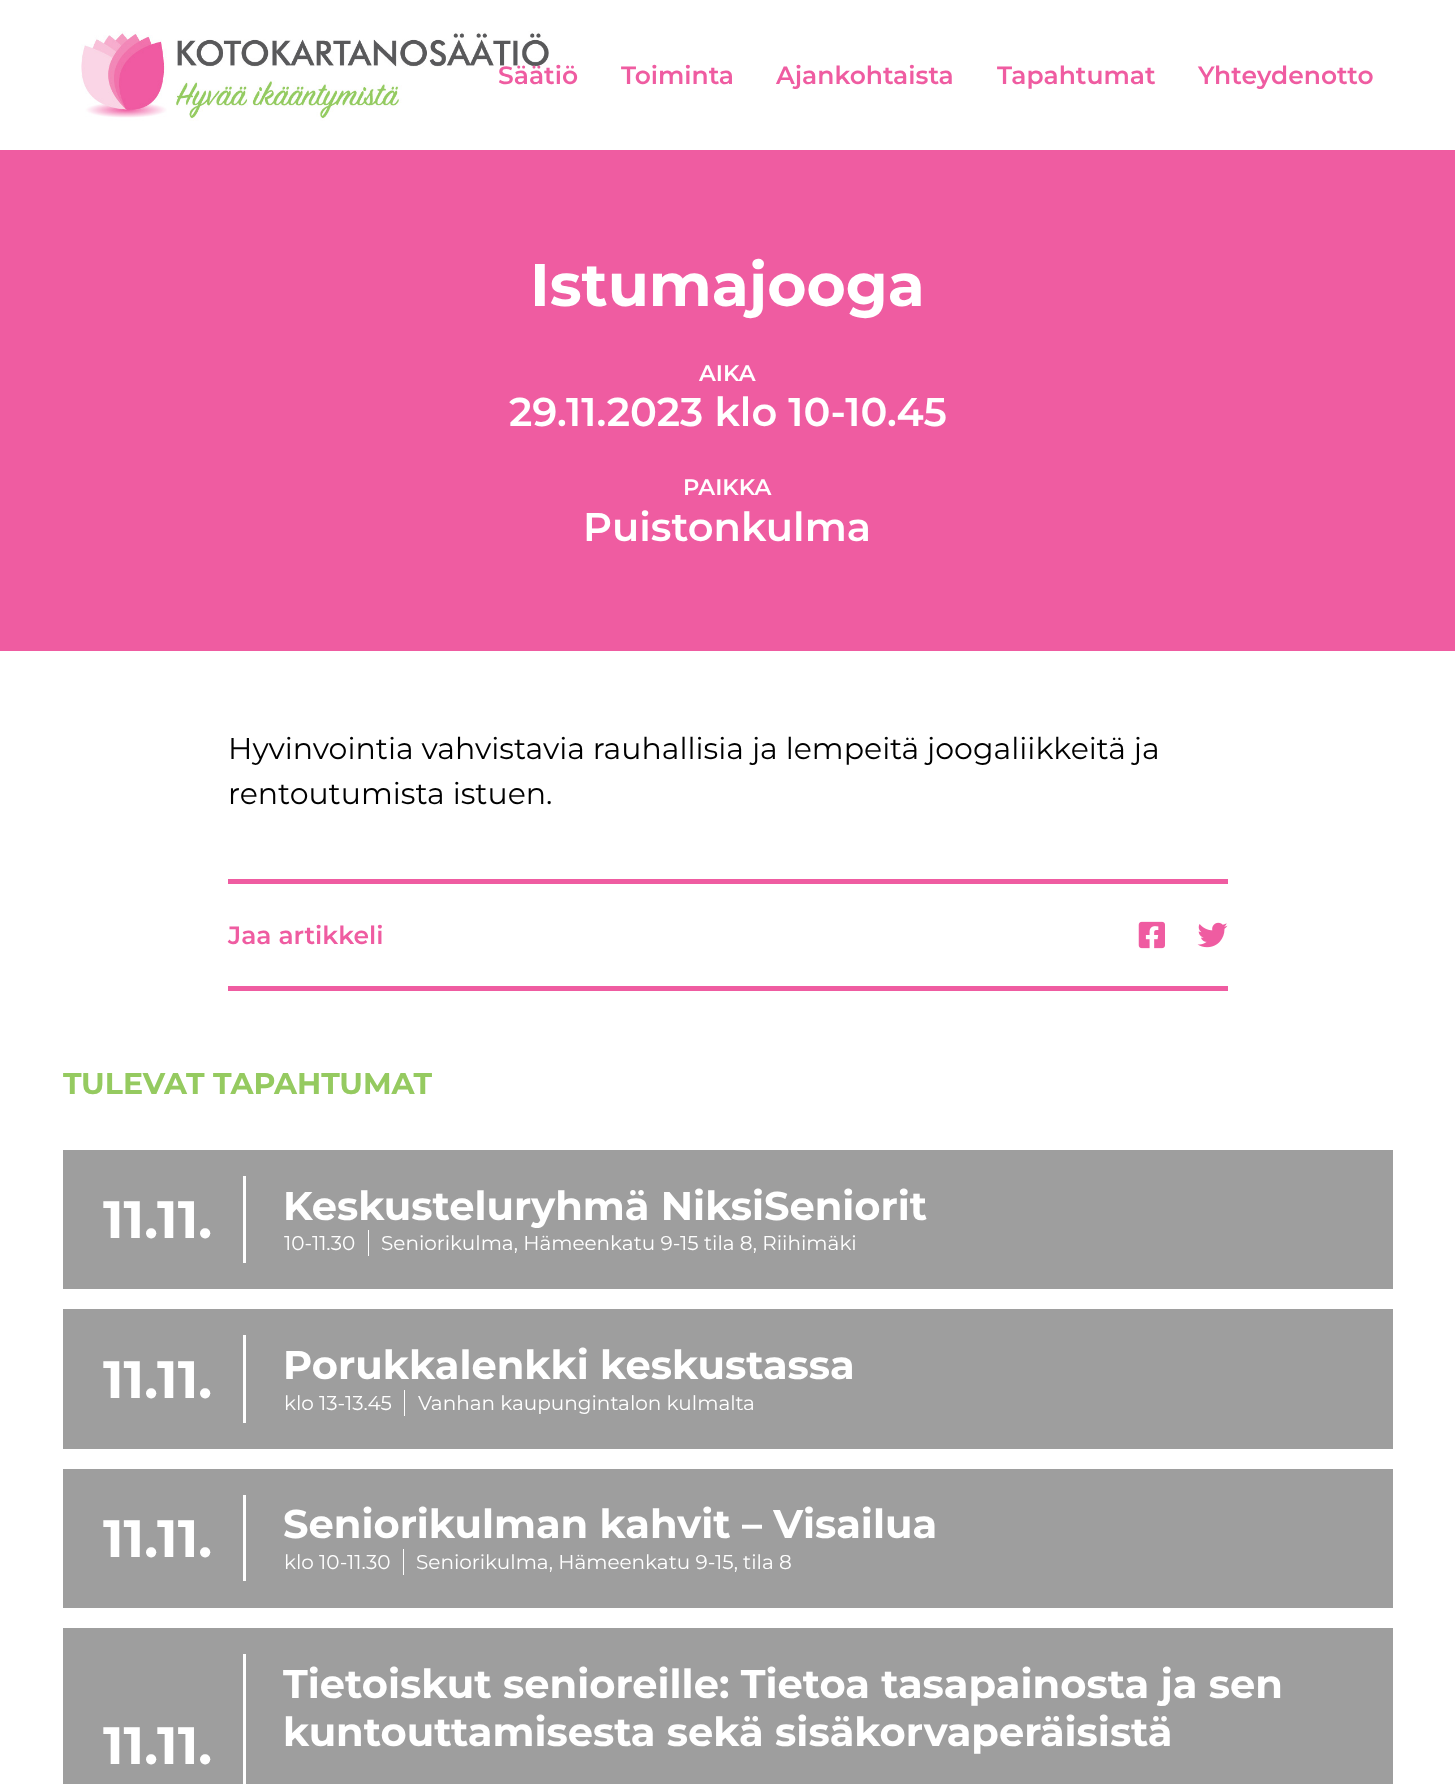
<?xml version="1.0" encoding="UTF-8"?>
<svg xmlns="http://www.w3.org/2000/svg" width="1455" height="1784">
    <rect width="100%" height="100%" fill="#FFFFFF"/>
    <image x="81" y="31" width="468" height="90" href="img_01.png"/>
    <text x="498" y="84" font-family="Montserrat" font-size="25" font-weight="600" fill="#EF5CA1">Säätiö</text>
    <text x="621" y="84" font-family="Montserrat" font-size="25" font-weight="600" fill="#EF5CA1">Toiminta</text>
    <text x="776" y="84" font-family="Montserrat" font-size="25" font-weight="600" fill="#EF5CA1">Ajankohtaista</text>
    <text x="997" y="84" font-family="Montserrat" font-size="25" font-weight="600" fill="#EF5CA1">Tapahtumat</text>
    <text x="1198" y="84" font-family="Montserrat" font-size="25" font-weight="600" fill="#EF5CA1">Yhteydenotto</text>
    <rect x="0" y="150" width="1455" height="501" fill="#EF5CA1"/>
    <text x="530" y="306" font-family="Montserrat" font-size="60" font-weight="700" fill="#FFFFFF">Istumajooga</text>
    <text x="699" y="381" font-family="Montserrat" font-size="22.5" font-weight="600" fill="#FFFFFF">AIKA</text>
    <text x="509" y="426" font-family="Montserrat" font-size="40" font-weight="600" fill="#FFFFFF">29.11.2023 klo 10-10.45</text>
    <text x="683" y="495" font-family="Montserrat" font-size="22.5" font-weight="600" fill="#FFFFFF">PAIKKA</text>
    <text x="583" y="541" font-family="Montserrat" font-size="40" font-weight="600" fill="#FFFFFF">Puistonkulma</text>
    <text font-family="Montserrat" font-size="30" fill="#000000">
        <tspan x="228" y="759">Hyvinvointia vahvistavia rauhallisia ja lempeitä joogaliikkeitä ja</tspan>
        <tspan x="228" y="804">rentoutumista istuen.</tspan>
    </text>
    <rect x="228" y="879" width="1000" height="5" fill="#EF5CA1"/>
    <rect x="228" y="986" width="1000" height="5" fill="#EF5CA1"/>
    <text x="228" y="944" font-family="Montserrat" font-size="25" font-weight="600" fill="#EF5CA1">Jaa artikkeli</text>
    <image x="1138" y="921" width="27" height="28" href="img_02.png"/>
    <image x="1197" y="922" width="31" height="26" href="img_03.png"/>
    <text x="63" y="1094" font-family="Montserrat" font-size="30" font-weight="700" fill="#95CA60">TULEVAT TAPAHTUMAT</text>
    <rect x="63" y="1150" width="1330" height="139" fill="#9E9E9E"/>
    <rect x="243" y="1176" width="3" height="87" fill="#FFFFFF"/>
    <text x="103" y="1238" font-family="Montserrat" font-size="52.5" font-weight="700" fill="#FFFFFF">11.11.</text>
    <text x="283" y="1220" font-family="Montserrat" font-size="40" font-weight="700" fill="#FFFFFF">Keskusteluryhmä NiksiSeniorit</text>
    <rect x="368" y="1230" width="1" height="26" fill="#FFFFFF"/>
    <text x="284" y="1250" font-family="Montserrat" font-size="20" fill="#FFFFFF">10-11.30</text>
    <text x="381" y="1250" font-family="Montserrat" font-size="20" fill="#FFFFFF">Seniorikulma, Hämeenkatu 9-15 tila 8, Riihimäki</text>
    <rect x="63" y="1309" width="1330" height="140" fill="#9E9E9E"/>
    <rect x="243" y="1335" width="3" height="88" fill="#FFFFFF"/>
    <text x="103" y="1398" font-family="Montserrat" font-size="52.5" font-weight="700" fill="#FFFFFF">11.11.</text>
    <text x="283" y="1379" font-family="Montserrat" font-size="40" font-weight="700" fill="#FFFFFF">Porukkalenkki keskustassa</text>
    <rect x="404" y="1390" width="1" height="26" fill="#FFFFFF"/>
    <text x="284" y="1410" font-family="Montserrat" font-size="20" fill="#FFFFFF">klo 13-13.45</text>
    <text x="418" y="1410" font-family="Montserrat" font-size="20" fill="#FFFFFF">Vanhan kaupungintalon kulmalta</text>
    <rect x="63" y="1469" width="1330" height="139" fill="#9E9E9E"/>
    <rect x="243" y="1495" width="3" height="86" fill="#FFFFFF"/>
    <text x="103" y="1557" font-family="Montserrat" font-size="52.5" font-weight="700" fill="#FFFFFF">11.11.</text>
    <text x="283" y="1538" font-family="Montserrat" font-size="40" font-weight="700" fill="#FFFFFF">Seniorikulman kahvit – Visailua</text>
    <rect x="403" y="1549" width="1" height="26" fill="#FFFFFF"/>
    <text x="284" y="1569" font-family="Montserrat" font-size="20" fill="#FFFFFF">klo 10-11.30</text>
    <text x="416" y="1569" font-family="Montserrat" font-size="20" fill="#FFFFFF">Seniorikulma, Hämeenkatu 9-15, tila 8</text>
    <rect x="63" y="1628" width="1330" height="156" fill="#9E9E9E"/>
    <rect x="243" y="1654" width="3" height="130" fill="#FFFFFF"/>
    <text x="103" y="1764" font-family="Montserrat" font-size="52.5" font-weight="700" fill="#FFFFFF">11.11.</text>
    <text font-family="Montserrat" font-size="40" font-weight="700" fill="#FFFFFF">
        <tspan x="283" y="1698">Tietoiskut senioreille: Tietoa tasapainosta ja sen</tspan>
        <tspan x="283" y="1746">kuntouttamisesta sekä sisäkorvaperäisistä</tspan>
    </text>
</svg>
